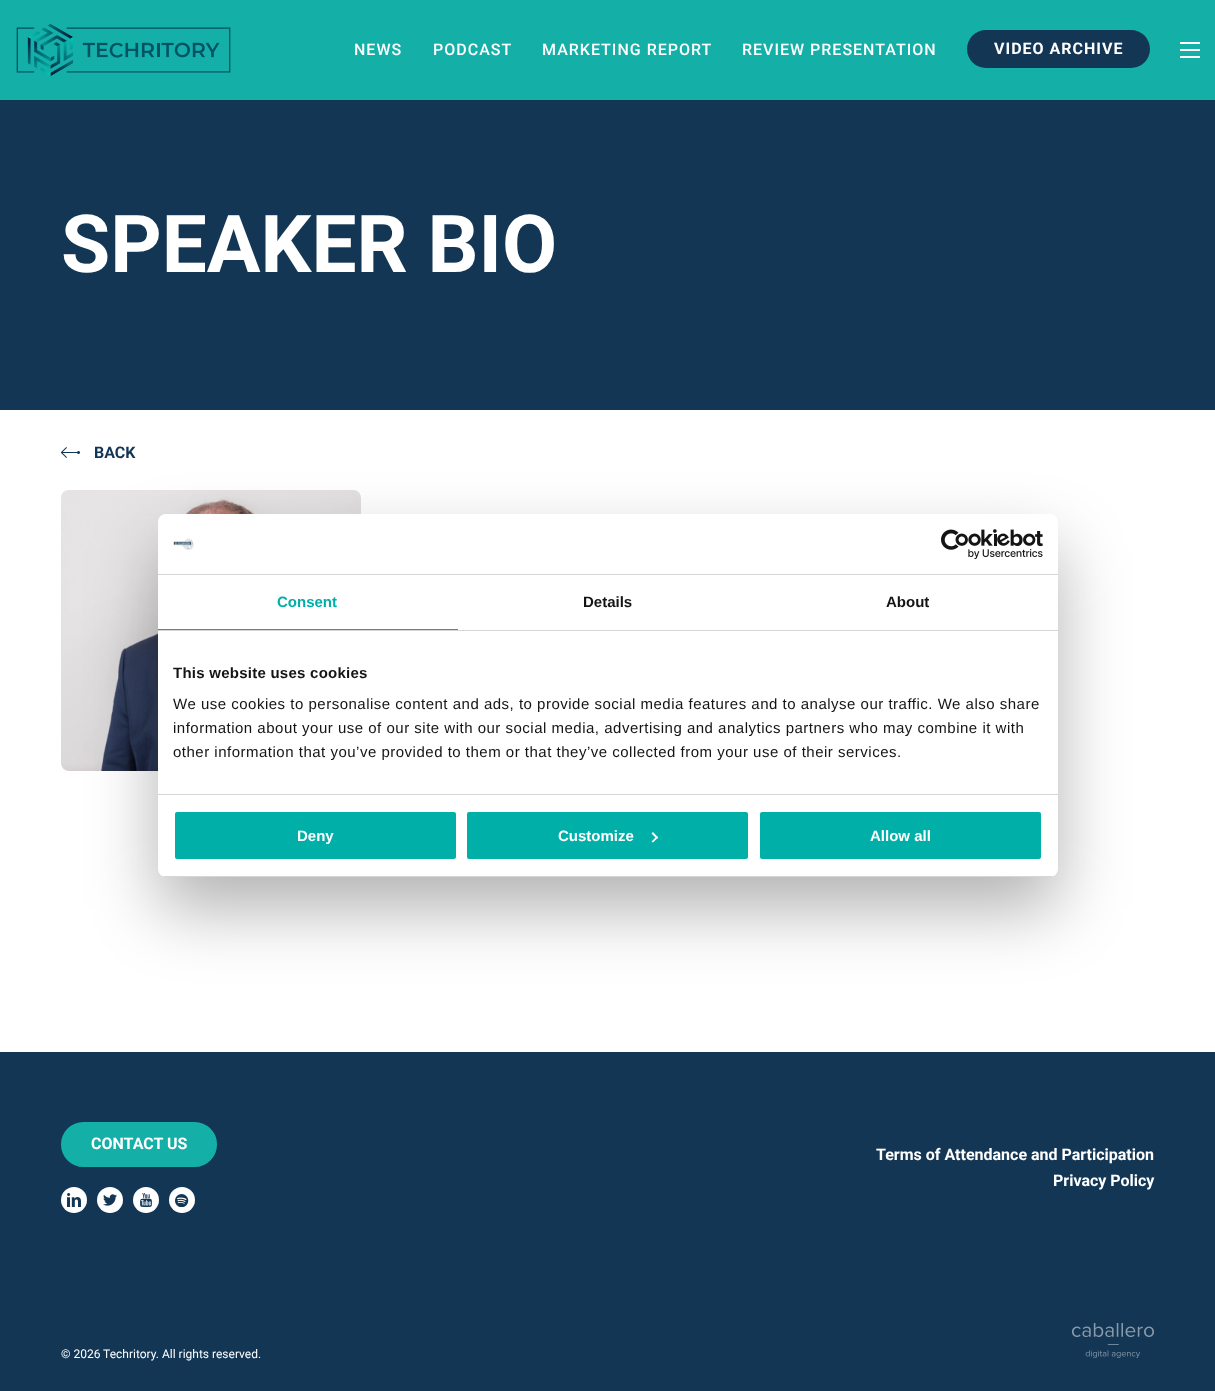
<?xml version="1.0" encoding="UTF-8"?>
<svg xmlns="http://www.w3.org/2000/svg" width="1215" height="1391">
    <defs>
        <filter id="blur1" x="-50%" y="-200%" width="200%" height="500%"><feGaussianBlur stdDeviation="34"/></filter>
        <clipPath id="clip1"><rect x="158" y="514" width="900" height="363" rx="8"/></clipPath>
    </defs>
    <rect width="100%" height="100%" fill="#FFFFFF"/>
    <rect x="0" y="0" width="1215" height="100" fill="#14B0A8"/>
    <image x="16" y="24" width="215" height="52" href="img_01.png"/>
    <text x="354" y="55" font-family="Roboto" font-size="16" font-weight="500" letter-spacing="1" fill="#FFFFFF">NEWS</text>
    <text x="433" y="55" font-family="Roboto" font-size="16" font-weight="500" letter-spacing="1" fill="#FFFFFF">PODCAST</text>
    <text x="542" y="55" font-family="Roboto" font-size="16" font-weight="500" letter-spacing="1" fill="#FFFFFF">MARKETING REPORT</text>
    <text x="742" y="55" font-family="Roboto" font-size="16" font-weight="500" letter-spacing="1" fill="#FFFFFF">REVIEW PRESENTATION</text>
    <rect x="967" y="30" width="183" height="38" rx="19" fill="#133655"/>
    <text x="994" y="54" font-family="Roboto" font-size="16" font-weight="700" letter-spacing="1" fill="#FFFFFF">VIDEO ARCHIVE</text>
    <rect x="1180" y="42" width="20" height="2" fill="#FFFFFF"/>
    <rect x="1180" y="49" width="20" height="2" fill="#FFFFFF"/>
    <rect x="1180" y="56" width="20" height="2" fill="#FFFFFF"/>
    <rect x="0" y="100" width="1215" height="310" fill="#133655"/>
    <text x="61" y="272" font-family="Roboto" font-size="80" font-weight="700" fill="#FFFFFF">SPEAKER BIO</text>
    <image x="61" y="447" width="19" height="11" href="img_02.png"/>
    <text x="94" y="458" font-family="Roboto" font-size="16" font-weight="700" fill="#133655">BACK</text>
    <image x="61" y="490" width="300" height="281" href="img_03.png"/>
    <rect x="0" y="1052" width="1215" height="339" fill="#133655"/>
    <rect x="62.5" y="1123.5" width="153" height="42" rx="21" fill="#14B0A8" stroke="#14B0A8" stroke-width="3"/>
    <text x="91" y="1149" font-family="Roboto" font-size="16" font-weight="700" fill="#FFFFFF">CONTACT US</text>
    <circle cx="74" cy="1200" r="13" fill="#FFFFFF"/>
    <image x="67" y="1193" width="14" height="14" href="img_04.png"/>
    <circle cx="110" cy="1200" r="13" fill="#FFFFFF"/>
    <image x="103" y="1194" width="14" height="12" href="img_05.png"/>
    <circle cx="146" cy="1200" r="13" fill="#FFFFFF"/>
    <image x="140" y="1193" width="12" height="14" href="img_06.png"/>
    <circle cx="182" cy="1200" r="13" fill="#FFFFFF"/>
    <image x="175" y="1194" width="14" height="13" href="img_07.png"/>
    <text x="876" y="1160" font-family="Roboto" font-size="16" font-weight="700" fill="#FFFFFF">Terms of Attendance and Participation</text>
    <text x="1053" y="1186" font-family="Roboto" font-size="16" font-weight="700" fill="#FFFFFF">Privacy Policy</text>
    <text x="61" y="1358" font-family="Roboto" font-size="12" fill="#FFFFFF">© 2026 Techritory. All rights reserved.</text>
    <image x="1072" y="1323" width="82" height="35" href="img_08.png"/>
    <rect x="158" y="546" width="900" height="363" rx="8" fill="#000000" fill-opacity="0.3" filter="url(#blur1)"/>
    <rect x="158" y="514" width="900" height="363" rx="8" fill="#FFFFFF"/>
    <rect x="158" y="574" width="900" height="1" fill="#D6D6D6"/>
    <image x="173" y="538" width="21" height="12" href="img_09.png"/>
    <image x="941" y="529" width="102" height="30" href="img_10.png"/>
    <rect x="158" y="630" width="900" height="1" fill="#D6D6D6"/>
    <rect x="158" y="629" width="300" height="1" fill="#00AFA8"/>
    <text x="277" y="607" font-family="Liberation Sans" font-size="15" font-weight="700" fill="#00AFA8">Consent</text>
    <text x="583" y="607" font-family="Liberation Sans" font-size="15" font-weight="700" fill="#141414">Details</text>
    <text x="886" y="607" font-family="Liberation Sans" font-size="15" font-weight="700" fill="#141414">About</text>
    <rect x="158" y="794" width="900" height="1" fill="#D6D6D6"/>
    <text x="173" y="678" font-family="Liberation Sans" font-size="15" font-weight="700" letter-spacing="0.25" fill="#141414">This website uses cookies</text>
    <text font-family="Liberation Sans" font-size="15" letter-spacing="0.5" fill="#141414">
        <tspan x="173" y="709">We use cookies to personalise content and ads, to provide social media features and to analyse our traffic. We also share</tspan>
        <tspan x="173" y="733">information about your use of our site with our social media, advertising and analytics partners who may combine it with</tspan>
        <tspan x="173" y="757">other information that you’ve provided to them or that they’ve collected from your use of their services.</tspan>
    </text>
    <g clip-path="url(#clip1)">
        <rect x="158" y="876" width="900" height="1" fill="#D6D6D6"/>
    </g>
    <rect x="174" y="811" width="283" height="49" rx="3" fill="#00AFA8" stroke="#FFFFFF" stroke-width="2"/>
    <text x="297" y="841" font-family="Liberation Sans" font-size="15" font-weight="700" fill="#FFFFFF">Deny</text>
    <rect x="466" y="811" width="283" height="49" rx="3" fill="#00AFA8" stroke="#FFFFFF" stroke-width="2"/>
    <text x="558" y="841" font-family="Liberation Sans" font-size="15" font-weight="700" fill="#FFFFFF">Customize</text>
    <path d="M 653 832 L 658 837.5 L 657 839 L 651.5 833.5 Z" fill="#FFFFFF"/>
    <path d="M 657 836 L 658 837.5 L 653 842.5 L 651.5 841.5 Z" fill="#FFFFFF"/>
    <rect x="759" y="811" width="283" height="49" rx="3" fill="#00AFA8" stroke="#FFFFFF" stroke-width="2"/>
    <text x="870" y="841" font-family="Liberation Sans" font-size="15" font-weight="700" fill="#FFFFFF">Allow all</text>
</svg>
